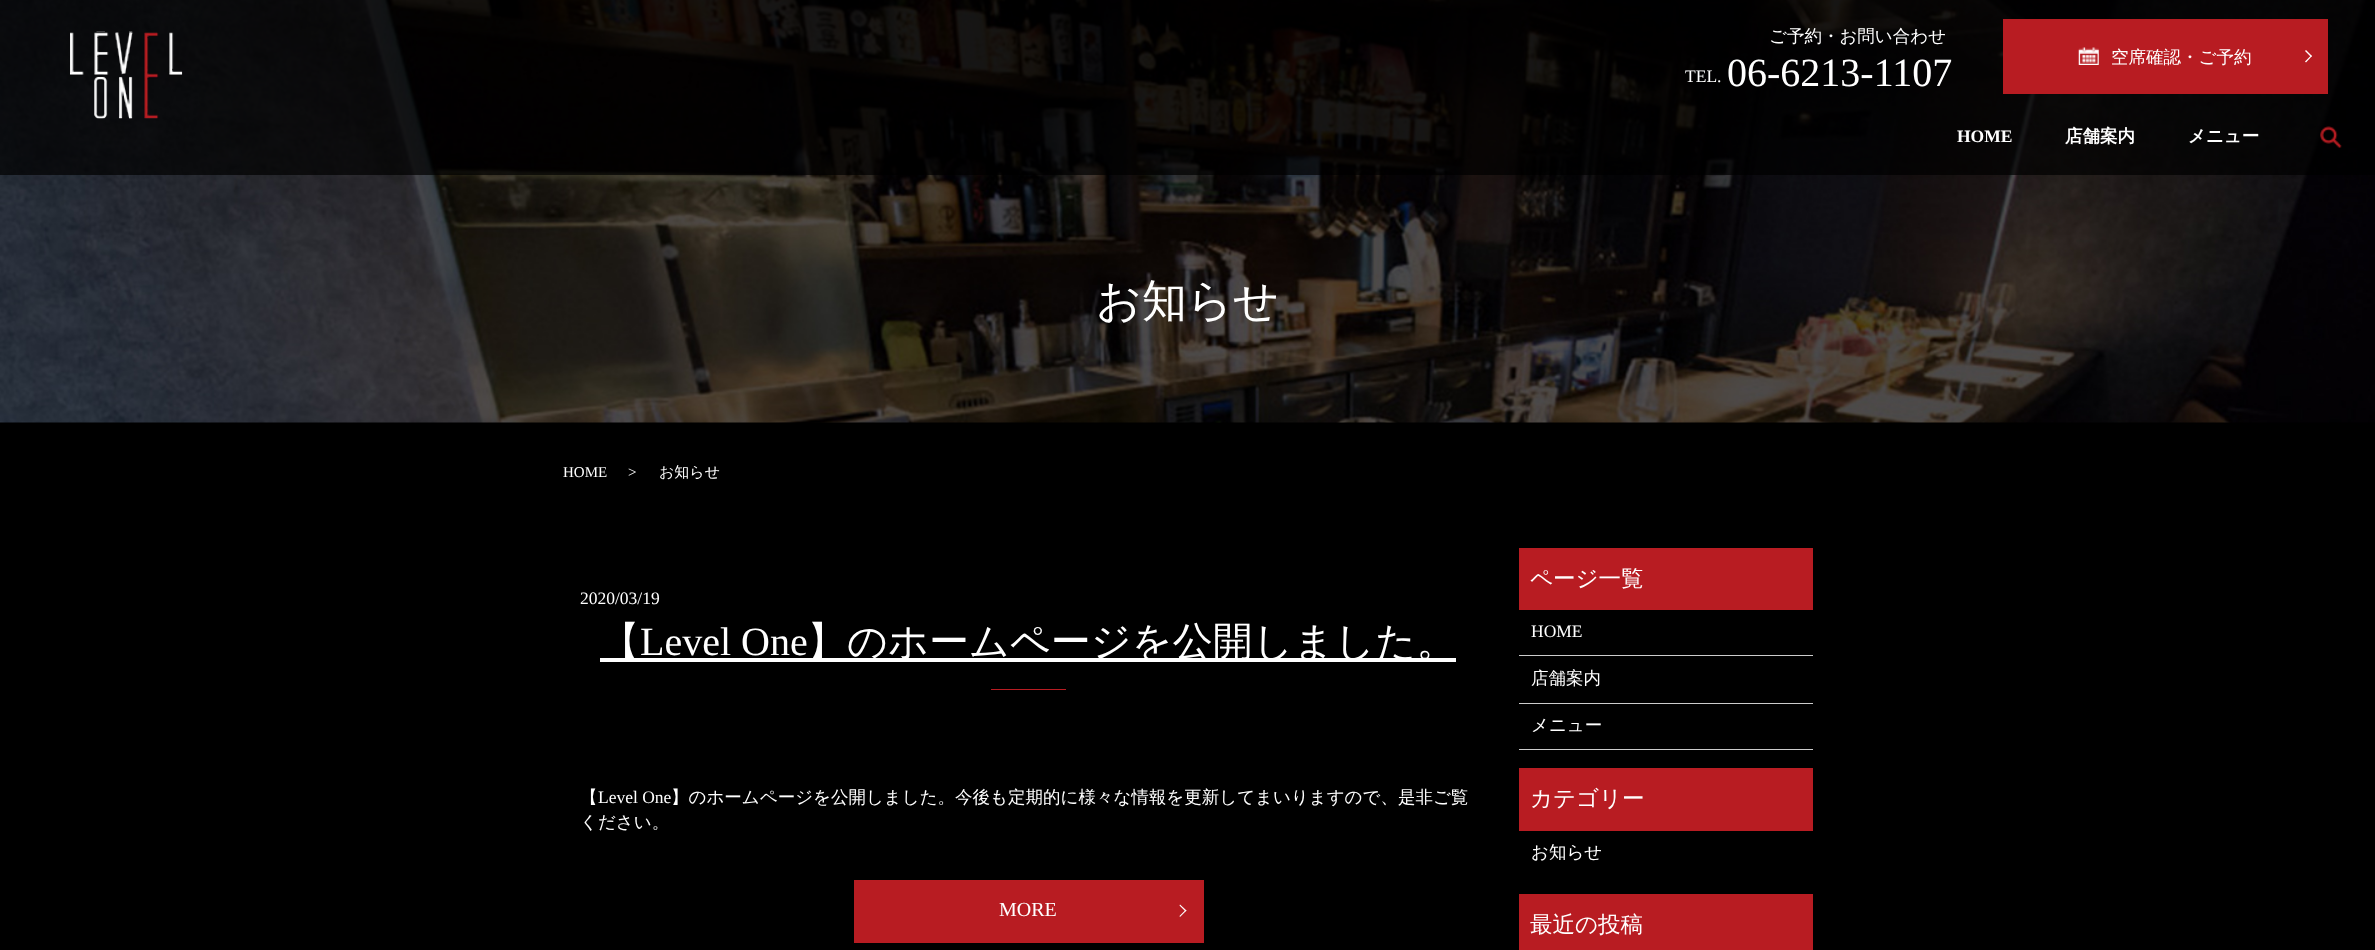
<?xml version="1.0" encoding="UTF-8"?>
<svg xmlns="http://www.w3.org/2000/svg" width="2375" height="950">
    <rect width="100%" height="100%" fill="#000000"/>
    <image x="0" y="0" width="2375" height="423" href="img_04.png"/>
    <rect x="0" y="0" width="2375" height="175" fill="#000000" fill-opacity="0.7"/>
    <image x="70" y="31" width="113" height="88" href="img_01.png"/>
    <text x="1769" y="42" font-family="WenQuanYi Zen Hei" font-size="17.5" font-weight="500" fill="#FFFFFF">ご予約・お問い合わせ</text>
    <text x="1685" y="82" font-family="Liberation Serif" font-size="17.5" fill="#FFFFFF">TEL.</text>
    <text x="1727" y="86" font-family="Liberation Serif" font-size="40" fill="#FFFFFF">06-6213-1107</text>
    <rect x="2003" y="19" width="325" height="75" fill="#B81C22"/>
    <image x="2078" y="47" width="21" height="18" href="img_02.png"/>
    <text x="2111" y="63" font-family="WenQuanYi Zen Hei" font-size="17.5" font-weight="500" fill="#FFFFFF">空席確認・ご予約</text>
    <path d="M 2306 50 L 2312 56 L 2311 57 L 2305 51 Z" fill="#FFFFFF"/>
    <path d="M 2311 55.5 L 2312 56 L 2306 62.5 L 2305 61.5 Z" fill="#FFFFFF"/>
    <text x="1957" y="142" font-family="Liberation Serif" font-size="17.5" font-weight="700" fill="#FFFFFF">HOME</text>
    <text x="2065" y="142" font-family="WenQuanYi Zen Hei" font-size="17.5" font-weight="700" fill="#FFFFFF">店舗案内</text>
    <text x="2188" y="142" font-family="WenQuanYi Zen Hei" font-size="17.5" font-weight="700" fill="#FFFFFF">メニュー</text>
    <image x="2320" y="126" width="22" height="22" href="img_03.png"/>
    <text x="1096" y="316" font-family="WenQuanYi Zen Hei" font-size="45" font-weight="500" fill="#FFFFFF">お知らせ</text>
    <text x="563" y="477" font-family="Liberation Serif" font-size="15" fill="#FFFFFF">HOME</text>
    <text x="628" y="477" font-family="Liberation Serif" font-size="15" fill="#FFFFFF">&gt;</text>
    <text x="659" y="477" font-family="WenQuanYi Zen Hei" font-size="15" font-weight="500" fill="#FFFFFF">お知らせ</text>
    <text x="580" y="604" font-family="Liberation Serif" font-size="17.5" fill="#FFFFFF">2020/03/19</text>
    <rect x="600" y="658" width="856" height="4" fill="#FFFFFF"/>
    <text x="600" y="655" font-family="WenQuanYi Zen Hei" font-size="40" font-weight="500" fill="#FFFFFF">【</text>
    <text x="640" y="655" font-family="Liberation Serif" font-size="40" fill="#FFFFFF">Level One</text>
    <text x="807" y="655" font-family="WenQuanYi Zen Hei" font-size="40" font-weight="500" fill="#FFFFFF">】のホームページを公開しました。</text>
    <rect x="991" y="689" width="75" height="1" fill="#B81C22"/>
    <text x="580" y="803" font-family="WenQuanYi Zen Hei" font-size="17.5" font-weight="500" fill="#FFFFFF">【</text>
    <text x="598" y="803" font-family="Liberation Serif" font-size="17.5" fill="#FFFFFF">Level One</text>
    <text x="671" y="803" font-family="WenQuanYi Zen Hei" font-size="17.5" font-weight="500" fill="#FFFFFF">】のホームページを公開しました。今後も定期的に様々な情報を更新してまいりますので、是非ご覧</text>
    <text x="580" y="828" font-family="WenQuanYi Zen Hei" font-size="17.5" font-weight="500" fill="#FFFFFF">ください。</text>
    <rect x="854" y="880" width="350" height="63" fill="#B81C22"/>
    <text x="999" y="916" font-family="Liberation Serif" font-size="20" fill="#FFFFFF">MORE</text>
    <path d="M 1180 904.5 L 1186.5 910.5 L 1185.5 911.5 L 1179.5 905.5 Z" fill="#FFFFFF"/>
    <path d="M 1185.5 910 L 1186.5 910.5 L 1180 917 L 1179.5 916 Z" fill="#FFFFFF"/>
    <rect x="1519" y="548" width="294" height="62" fill="#B81C22"/>
    <text x="1530" y="586" font-family="WenQuanYi Zen Hei" font-size="22.5" font-weight="500" fill="#FFFFFF">ページ一覧</text>
    <rect x="1519" y="655" width="294" height="1" fill="#CCCCCC"/>
    <text x="1531" y="637" font-family="Liberation Serif" font-size="17.5" fill="#FFFFFF">HOME</text>
    <rect x="1519" y="703" width="294" height="1" fill="#CCCCCC"/>
    <text x="1531" y="684" font-family="WenQuanYi Zen Hei" font-size="17.5" font-weight="500" fill="#FFFFFF">店舗案内</text>
    <rect x="1519" y="749" width="294" height="1" fill="#CCCCCC"/>
    <text x="1531" y="731" font-family="WenQuanYi Zen Hei" font-size="17.5" font-weight="500" fill="#FFFFFF">メニュー</text>
    <rect x="1519" y="768" width="294" height="63" fill="#B81C22"/>
    <text x="1530" y="806" font-family="WenQuanYi Zen Hei" font-size="22.5" font-weight="500" fill="#FFFFFF">カテゴリー</text>
    <text x="1531" y="858" font-family="WenQuanYi Zen Hei" font-size="17.5" font-weight="500" fill="#FFFFFF">お知らせ</text>
    <rect x="1519" y="894" width="294" height="56" fill="#B81C22"/>
    <text x="1530" y="932" font-family="WenQuanYi Zen Hei" font-size="22.5" font-weight="500" fill="#FFFFFF">最近の投稿</text>
</svg>
